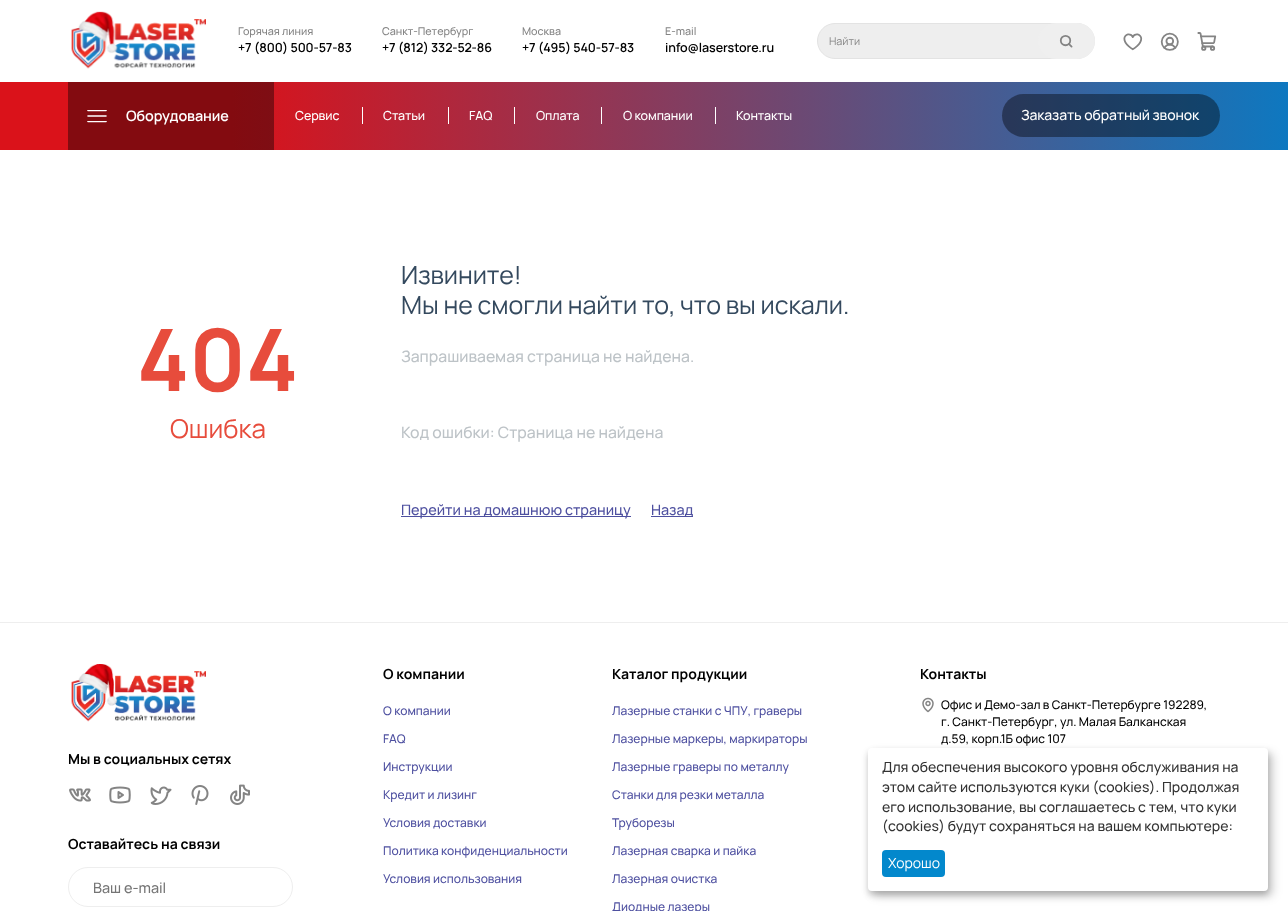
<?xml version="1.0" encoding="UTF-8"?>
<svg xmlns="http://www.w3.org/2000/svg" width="1288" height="911">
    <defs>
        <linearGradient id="g1" gradientUnits="userSpaceOnUse" x1="0" y1="116" x2="1288" y2="116"><stop offset="0.18" stop-color="#DA121A"/><stop offset="1" stop-color="#0E78C0"/></linearGradient>
        <linearGradient id="g2" gradientUnits="userSpaceOnUse" x1="0" y1="116" x2="1288" y2="116"><stop offset="0.18" stop-color="#830B10"/><stop offset="1" stop-color="#084873"/></linearGradient>
        <clipPath id="clip1"><rect x="87" y="110" width="20" height="2"/></clipPath>
        <clipPath id="clip2"><rect x="87" y="121" width="20" height="2"/></clipPath>
        <filter id="blur1" x="-50%" y="-200%" width="200%" height="500%"><feGaussianBlur stdDeviation="5"/></filter>
        <filter id="blur2" x="-50%" y="-200%" width="200%" height="500%"><feGaussianBlur stdDeviation="3"/></filter>
    </defs>
    <rect width="100%" height="100%" fill="#FFFFFF"/>
    <image x="71" y="11" width="135" height="58" href="img_01.png"/>
    <text x="238" y="35" font-family="Manrope" font-size="10.75" font-weight="500" fill="#848484">Горячая линия</text>
    <text x="238" y="52" font-family="Manrope" font-size="12.5" font-weight="600" letter-spacing="-0.1" fill="#000000">+7 (800) 500-57-83</text>
    <text x="382" y="35" font-family="Manrope" font-size="10.75" font-weight="500" fill="#848484">Санкт-Петербург</text>
    <text x="382" y="52" font-family="Manrope" font-size="12.5" font-weight="600" letter-spacing="-0.1" fill="#000000">+7 (812) 332-52-86</text>
    <text x="522" y="35" font-family="Manrope" font-size="10.75" font-weight="500" fill="#848484">Москва</text>
    <text x="522" y="52" font-family="Manrope" font-size="12.5" font-weight="600" letter-spacing="-0.1" fill="#000000">+7 (495) 540-57-83</text>
    <text x="665" y="35" font-family="Manrope" font-size="10.75" font-weight="500" fill="#848484">E-mail</text>
    <text x="665" y="52" font-family="Manrope" font-size="12.5" font-weight="600" letter-spacing="-0.1" fill="#000000">info@laserstore.ru</text>
    <rect x="817.5" y="23.5" width="277" height="35" rx="17.5" fill="#EEEEEE" stroke="#E3E3E3"/>
    <text x="829" y="45" font-family="Manrope" font-size="10.75" fill="#848484">Найти</text>
    <rect x="1038" y="23" width="57" height="36" rx="18" fill="#EFEFEF"/>
    <image x="1059" y="35" width="14" height="13" href="img_02.png"/>
    <image x="1123" y="33" width="20" height="18" href="img_03.png"/>
    <image x="1160" y="32" width="19" height="19" href="img_04.png"/>
    <image x="1197" y="32" width="20" height="19" href="img_05.png"/>
    <rect x="0" y="82" width="1288" height="68" fill="url(#g1)"/>
    <rect x="68" y="82" width="206" height="68" fill="url(#g2)"/>
    <g clip-path="url(#clip1)">
        <path d="M 88 110.5 H 106" fill="none" stroke="#FFFFFF" stroke-width="1.6" stroke-linecap="round" stroke-linejoin="round"/>
    </g>
    <path d="M 88 116 H 106 M 88 116 H 106" fill="none" stroke="#FFFFFF" stroke-width="1.6" stroke-linecap="round" stroke-linejoin="round"/>
    <g clip-path="url(#clip2)">
        <path d="M 88 121.5 H 106" fill="none" stroke="#FFFFFF" stroke-width="1.6" stroke-linecap="round" stroke-linejoin="round"/>
    </g>
    <text x="126" y="121" font-family="Manrope" font-size="14.4" font-weight="600" letter-spacing="-0.1" fill="#FFFFFF">Оборудование</text>
    <text x="295" y="120" font-family="Manrope" font-size="12.5" font-weight="500" letter-spacing="-0.1" fill="#FFFFFF">Сервис</text>
    <rect x="362" y="107" width="1" height="17" fill="#FFFFFF"/>
    <text x="383" y="120" font-family="Manrope" font-size="12.5" font-weight="500" letter-spacing="-0.1" fill="#FFFFFF">Статьи</text>
    <rect x="448" y="107" width="1" height="17" fill="#FFFFFF"/>
    <text x="469" y="120" font-family="Manrope" font-size="12.5" font-weight="500" letter-spacing="-0.1" fill="#FFFFFF">FAQ</text>
    <rect x="514" y="107" width="1" height="17" fill="#FFFFFF"/>
    <text x="536" y="120" font-family="Manrope" font-size="12.5" font-weight="500" letter-spacing="-0.1" fill="#FFFFFF">Оплата</text>
    <rect x="601" y="107" width="1" height="17" fill="#FFFFFF"/>
    <text x="623" y="120" font-family="Manrope" font-size="12.5" font-weight="500" letter-spacing="-0.1" fill="#FFFFFF">О компании</text>
    <rect x="715" y="107" width="1" height="17" fill="#FFFFFF"/>
    <text x="736" y="120" font-family="Manrope" font-size="12.5" font-weight="500" letter-spacing="-0.1" fill="#FFFFFF">Контакты</text>
    <rect x="1002" y="94" width="218" height="43" rx="21.5" fill="#000000" fill-opacity="0.4"/>
    <text x="1021" y="120" font-family="Manrope" font-size="14" font-weight="500" letter-spacing="-0.1" fill="#FFFFFF">Заказать обратный звонок</text>
    <text x="137" y="391" font-family="Manrope" font-size="86" font-weight="700" fill="#E74C3C">404</text>
    <text x="170" y="438" font-family="Manrope" font-size="26" fill="#E74C3C">Ошибка</text>
    <text font-family="Manrope" font-size="25" letter-spacing="-0.1" fill="#34495E">
        <tspan x="401" y="284">Извините!</tspan>
        <tspan x="401" y="314">Мы не смогли найти то, что вы искали.</tspan>
    </text>
    <text x="401" y="362" font-family="Manrope" font-size="15.8" font-weight="500" fill="#BDC3C7">Запрашиваемая страница не найдена.</text>
    <text x="401" y="438" font-family="Manrope" font-size="15.8" font-weight="500" fill="#BDC3C7">Код ошибки: Страница не найдена</text>
    <rect x="401" y="516" width="230" height="1" fill="#4E50A0"/>
    <text x="401" y="515" font-family="Manrope" font-size="14.4" font-weight="500" fill="#4E50A0">Перейти на домашнюю страницу</text>
    <rect x="651" y="516" width="42" height="1" fill="#4E50A0"/>
    <text x="651" y="515" font-family="Manrope" font-size="14.4" font-weight="500" fill="#4E50A0">Назад</text>
    <rect x="0" y="622" width="1288" height="1" fill="#EEEEEE"/>
    <image x="71" y="664" width="135" height="58" href="img_06.png"/>
    <text x="68" y="764" font-family="Manrope" font-size="14" font-weight="700" fill="#000000">Мы в социальных сетях</text>
    <image x="69" y="788" width="22" height="14" href="img_07.png"/>
    <image x="109" y="786" width="22" height="18" href="img_08.png"/>
    <image x="150" y="786" width="22" height="19" href="img_09.png"/>
    <image x="191" y="785" width="18" height="20" href="img_10.png"/>
    <image x="230" y="784" width="20" height="21" href="img_11.png"/>
    <text x="68" y="849" font-family="Manrope" font-size="14" font-weight="700" fill="#000000">Оставайтесь на связи</text>
    <rect x="68.5" y="867.5" width="224" height="39" rx="19.5" fill="none" stroke="#EEEEEE"/>
    <text x="93" y="893" font-family="Manrope" font-size="14.4" font-weight="500" fill="#757575">Ваш e-mail</text>
    <text x="383" y="679" font-family="Manrope" font-size="14" font-weight="700" fill="#000000">О компании</text>
    <text x="383" y="715" font-family="Manrope" font-size="12" font-weight="500" fill="#4E50A0">О компании</text>
    <text x="383" y="743" font-family="Manrope" font-size="12" font-weight="500" fill="#4E50A0">FAQ</text>
    <text x="383" y="771" font-family="Manrope" font-size="12" font-weight="500" fill="#4E50A0">Инструкции</text>
    <text x="383" y="799" font-family="Manrope" font-size="12" font-weight="500" fill="#4E50A0">Кредит и лизинг</text>
    <text x="383" y="827" font-family="Manrope" font-size="12" font-weight="500" fill="#4E50A0">Условия доставки</text>
    <text x="383" y="855" font-family="Manrope" font-size="12" font-weight="500" fill="#4E50A0">Политика конфиденциальности</text>
    <text x="383" y="883" font-family="Manrope" font-size="12" font-weight="500" fill="#4E50A0">Условия использования</text>
    <text x="612" y="679" font-family="Manrope" font-size="14" font-weight="700" fill="#000000">Каталог продукции</text>
    <text x="612" y="715" font-family="Manrope" font-size="12" font-weight="500" fill="#4E50A0">Лазерные станки с ЧПУ, граверы</text>
    <text x="612" y="743" font-family="Manrope" font-size="12" font-weight="500" fill="#4E50A0">Лазерные маркеры, маркираторы</text>
    <text x="612" y="771" font-family="Manrope" font-size="12" font-weight="500" fill="#4E50A0">Лазерные граверы по металлу</text>
    <text x="612" y="799" font-family="Manrope" font-size="12" font-weight="500" fill="#4E50A0">Станки для резки металла</text>
    <text x="612" y="827" font-family="Manrope" font-size="12" font-weight="500" fill="#4E50A0">Труборезы</text>
    <text x="612" y="855" font-family="Manrope" font-size="12" font-weight="500" fill="#4E50A0">Лазерная сварка и пайка</text>
    <text x="612" y="883" font-family="Manrope" font-size="12" font-weight="500" fill="#4E50A0">Лазерная очистка</text>
    <text x="612" y="911" font-family="Manrope" font-size="12" font-weight="500" fill="#4E50A0">Диодные лазеры</text>
    <text x="920" y="679" font-family="Manrope" font-size="14" font-weight="700" fill="#000000">Контакты</text>
    <image x="922" y="697" width="12" height="16" href="img_12.png"/>
    <text font-family="Manrope" font-size="12" font-weight="500" fill="#000000">
        <tspan x="941" y="709">Офис и Демо-зал в Санкт-Петербурге 192289,</tspan>
        <tspan x="941" y="726">г. Санкт-Петербург, ул. Малая Балканская</tspan>
        <tspan x="941" y="743">д.59, корп.1Б офис 107</tspan>
    </text>
    <rect x="873" y="753" width="400" height="143" rx="4" fill="#000000" fill-opacity="0.19" filter="url(#blur1)"/>
    <rect x="868" y="752" width="400" height="143" rx="4" fill="#000000" fill-opacity="0.2" filter="url(#blur2)"/>
    <rect x="868" y="748" width="400" height="143" rx="4" fill="#FFFFFF"/>
    <text font-family="Manrope" font-size="14" font-weight="500" fill="#333333">
        <tspan x="882" y="772">Для обеспечения высокого уровня обслуживания на</tspan>
        <tspan x="882" y="792">этом сайте используются куки (cookies). Продолжая</tspan>
        <tspan x="882" y="812">его использование, вы соглашаетесь с тем, что куки</tspan>
        <tspan x="882" y="831">(cookies) будут сохраняться на вашем компьютере:</tspan>
    </text>
    <rect x="882" y="850" width="63" height="27" rx="4" fill="#0388CC"/>
    <text x="888" y="868" font-family="Manrope" font-size="14" fill="#FFFFFF">Хорошо</text>
</svg>
